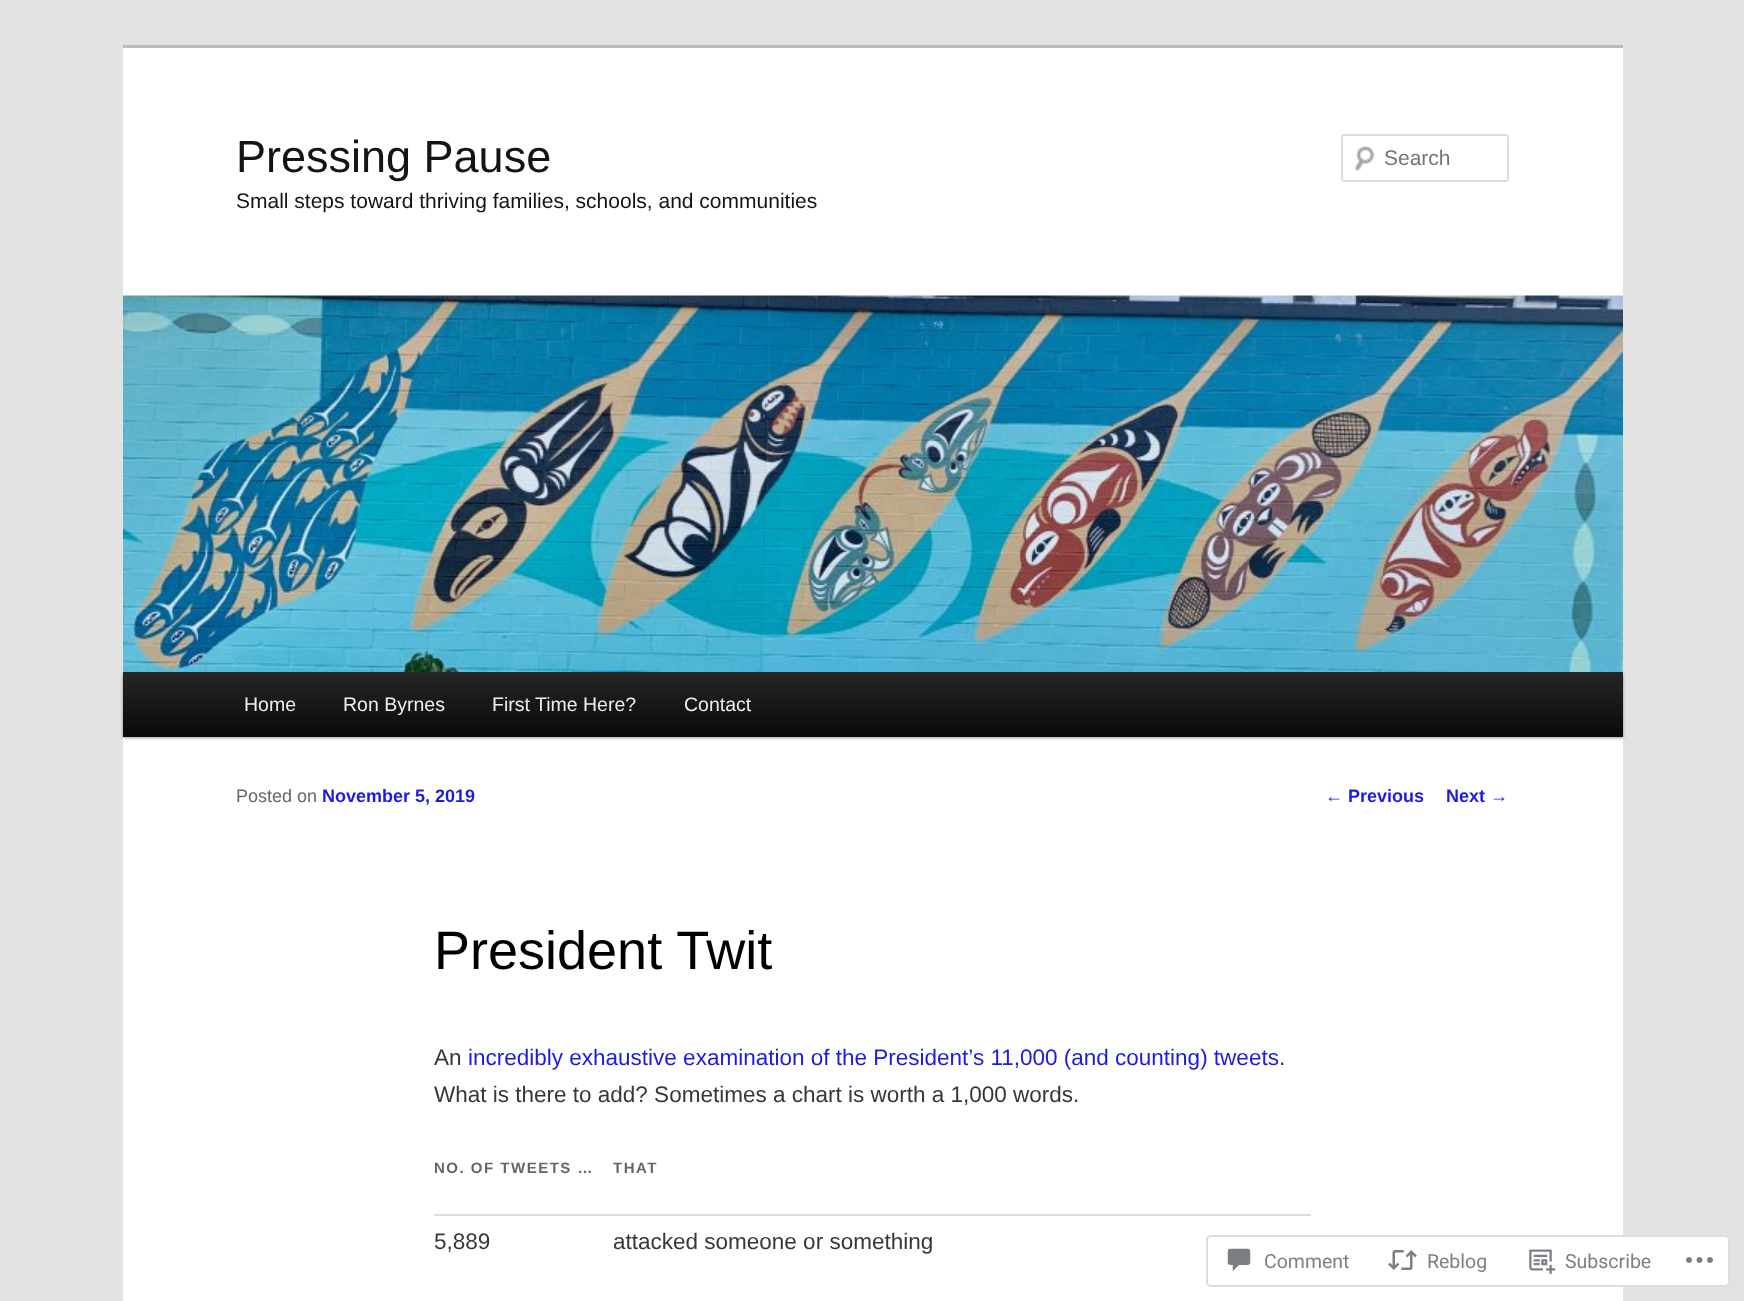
<?xml version="1.0" encoding="UTF-8"?>
<svg xmlns="http://www.w3.org/2000/svg" width="1744" height="1301">
    <defs>
        <filter id="blur1" x="-50%" y="-200%" width="200%" height="500%"><feGaussianBlur stdDeviation="1.5"/></filter>
        <linearGradient id="g1" gradientUnits="userSpaceOnUse" x1="873" y1="672" x2="873" y2="737"><stop offset="0" stop-color="#252525"/><stop offset="1" stop-color="#0A0A0A"/></linearGradient>
    </defs>
    <rect width="100%" height="100%" fill="#E2E2E2"/>
    <rect x="123" y="48" width="1500" height="1253" fill="#FFFFFF"/>
    <rect x="123" y="45" width="1500" height="3" fill="#BBBBBB"/>
    <text x="236" y="172" font-family="Arimo" font-size="45" fill="#171313">Pressing Pause</text>
    <text x="236" y="208" font-family="Arimo" font-size="21" fill="#171313">Small steps toward thriving families, schools, and communities</text>
    <image x="1354" y="145" width="21" height="27" href="img_01.png"/>
    <rect x="1342" y="135" width="166" height="46" rx="2" fill="none" stroke="#DDDDDD" stroke-width="2"/>
    <text x="1384" y="165" font-family="Arimo" font-size="21" fill="#757575">Search</text>
    <rect x="123" y="674" width="1500" height="64" fill="#000000" fill-opacity="0.4" filter="url(#blur1)"/>
    <image x="123" y="295" width="1500" height="377" href="img_02.png"/>
    <rect x="123" y="672" width="1500" height="65" fill="url(#g1)"/>
    <text x="244" y="711" font-family="Arimo" font-size="19.5" fill="#EEEEEE">Home</text>
    <text x="343" y="711" font-family="Arimo" font-size="19.5" fill="#EEEEEE">Ron Byrnes</text>
    <text x="492" y="711" font-family="Arimo" font-size="19.5" fill="#EEEEEE">First Time Here?</text>
    <text x="684" y="711" font-family="Arimo" font-size="19.5" fill="#EEEEEE">Contact</text>
    <text x="236" y="802" font-family="Arimo" font-size="18" fill="#666666">Posted on</text>
    <text x="322" y="802" font-family="Arimo" font-size="18" font-weight="700" fill="#1D1BE0">November 5, 2019</text>
    <text x="434" y="969" font-family="Arimo" font-size="54" fill="#000000">President Twit</text>
    <text x="434" y="1065" font-family="Arimo" font-size="22.5" fill="#373737">An</text>
    <text x="468" y="1065" font-family="Arimo" font-size="22.5" fill="#1D1BE0">incredibly exhaustive examination of the President’s 11,000 (and counting) tweets</text>
    <text x="1279" y="1065" font-family="Arimo" font-size="22.5" fill="#373737">.</text>
    <text x="434" y="1102" font-family="Arimo" font-size="22.5" fill="#373737">What is there to add? Sometimes a chart is worth a 1,000 words.</text>
    <text x="434" y="1173" font-family="Arimo" font-size="15" font-weight="700" letter-spacing="1.5" fill="#666666">NO. OF TWEETS …</text>
    <text x="613" y="1173" font-family="Arimo" font-size="15" font-weight="700" letter-spacing="1.5" fill="#666666">THAT</text>
    <rect x="434" y="1214" width="877" height="2" fill="#DDDDDD"/>
    <text x="434" y="1249" font-family="Arimo" font-size="22.5" fill="#373737">5,889</text>
    <text x="613" y="1249" font-family="Arimo" font-size="22.5" fill="#373737">attacked someone or something</text>
    <text x="1325" y="802" font-family="Liberation Sans" font-size="18" fill="#1D1BE0">←</text>
    <text x="1348" y="802" font-family="Arimo" font-size="18" font-weight="700" fill="#1D1BE0">Previous</text>
    <text x="1446" y="802" font-family="Arimo" font-size="18" font-weight="700" fill="#1D1BE0">Next</text>
    <text x="1490" y="802" font-family="Liberation Sans" font-size="18" fill="#1D1BE0">→</text>
    <rect x="1206" y="1235" width="524" height="52" rx="5" fill="#FFFFFF" fill-opacity="0.98"/>
    <rect x="1207" y="1236" width="522" height="50" rx="4" fill="none" stroke="#DCDCDE" stroke-opacity="0.98" stroke-width="2"/>
    <image x="1227" y="1248" width="24" height="24" href="img_03.png"/>
    <text x="1264" y="1268" font-family="Roboto" font-size="19.5" fill="#7B7F85">Comment</text>
    <image x="1388" y="1250" width="29" height="20" href="img_04.png"/>
    <text x="1427" y="1268" font-family="Roboto" font-size="19.5" fill="#7B7F85">Reblog</text>
    <image x="1529" y="1249" width="27" height="25" href="img_05.png"/>
    <text x="1565" y="1268" font-family="Roboto" font-size="19.5" fill="#7B7F85">Subscribe</text>
    <image x="1686" y="1257" width="27" height="6" href="img_06.png"/>
</svg>
